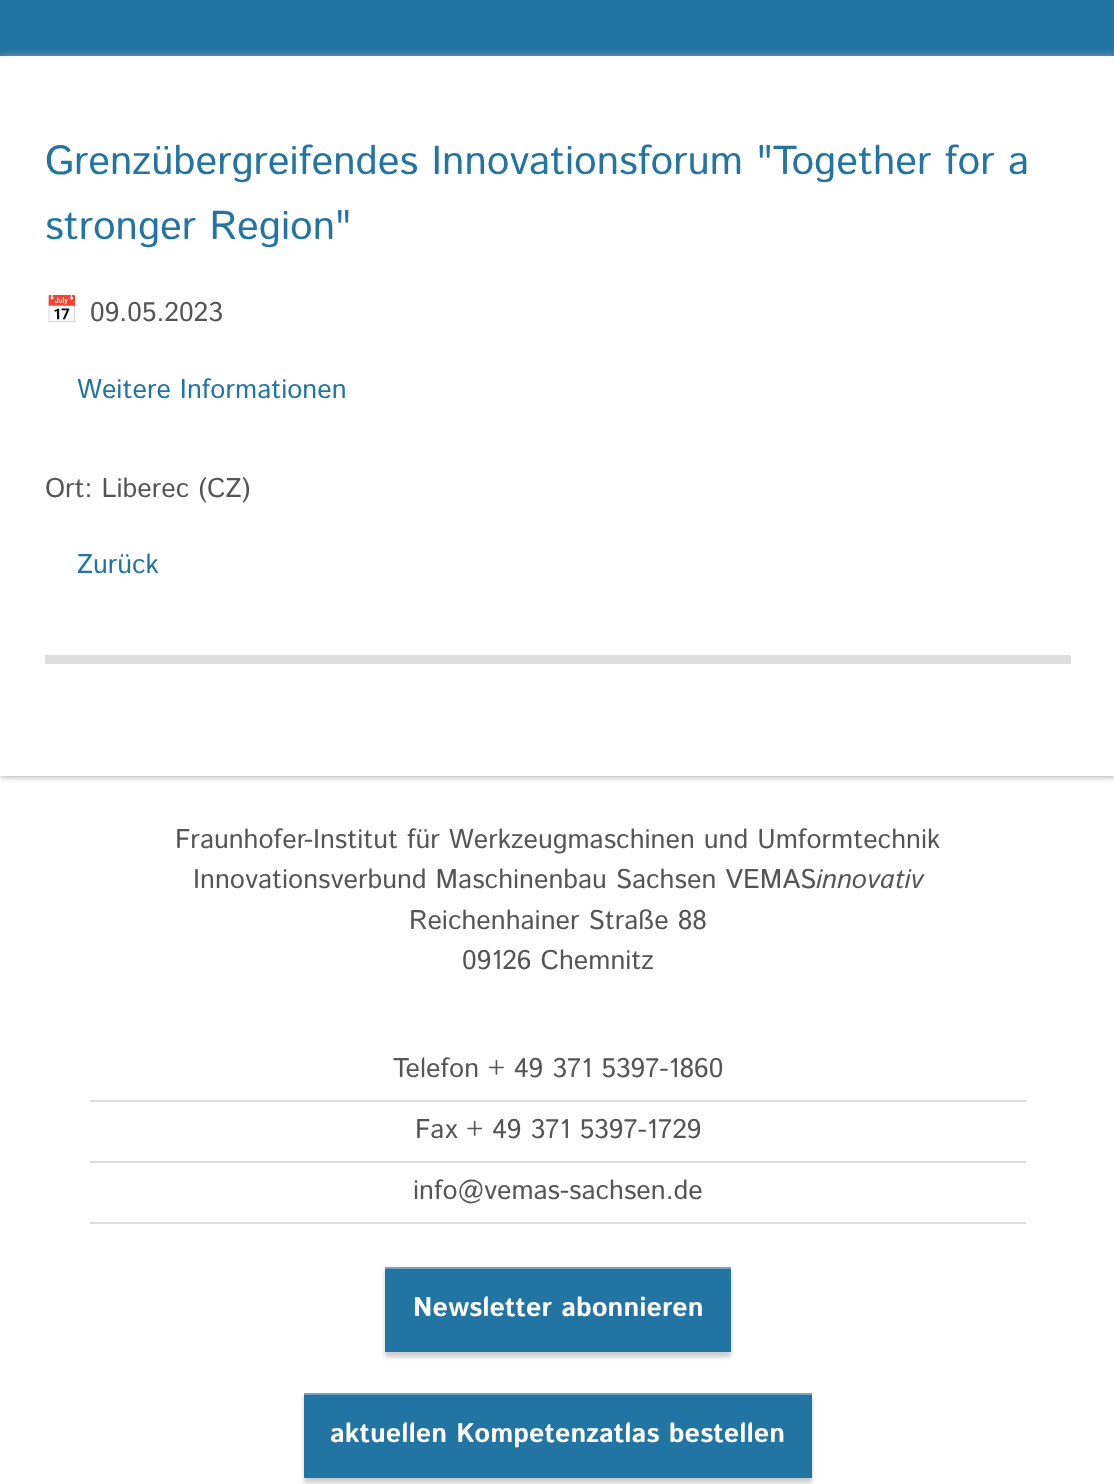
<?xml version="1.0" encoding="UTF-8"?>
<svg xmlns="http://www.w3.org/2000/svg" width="1114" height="1484">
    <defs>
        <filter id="blur1" x="-50%" y="-200%" width="200%" height="500%"><feGaussianBlur stdDeviation="3.5"/></filter>
        <filter id="blur2" x="-50%" y="-200%" width="200%" height="500%"><feGaussianBlur stdDeviation="2"/></filter>
    </defs>
    <rect width="100%" height="100%" fill="#2274A2"/>
    <rect x="0" y="776" width="1114" height="708" fill="#FFFFFF"/>
    <rect x="0" y="56" width="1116" height="720" fill="#999999" filter="url(#blur1)"/>
    <rect x="0" y="56" width="1114" height="720" fill="#FFFFFF"/>
    <text font-family="Istok Web" font-size="40.5" fill="#2274A2">
        <tspan x="45" y="174">Grenzübergreifendes Innovationsforum "Together for a</tspan>
        <tspan x="45" y="239">stronger Region"</tspan>
    </text>
    <text x="45" y="319" font-family="Noto Color Emoji" font-size="27" fill="#555555">📅</text>
    <text x="90" y="321" font-family="Istok Web" font-size="27" fill="#555555">09.05.2023</text>
    <text x="77" y="398" font-family="Istok Web" font-size="27" fill="#2274A2">Weitere Informationen</text>
    <text x="45" y="497" font-family="Istok Web" font-size="27" fill="#555555">Ort: Liberec (CZ)</text>
    <text x="77" y="573" font-family="Istok Web" font-size="27" fill="#2274A2">Zurück</text>
    <rect x="45" y="655" width="1026" height="9" fill="#DDDDDD"/>
    <text x="175" y="848" font-family="Istok Web" font-size="27" fill="#555555">Fraunhofer-Institut für Werkzeugmaschinen und Umformtechnik</text>
    <text x="193" y="888" font-family="Istok Web" font-size="27" fill="#555555">Innovationsverbund Maschinenbau Sachsen VEMAS</text>
    <text x="816" y="888" font-family="Istok Web" font-size="27" font-style="italic" fill="#555555">innovativ</text>
    <text x="409" y="929" font-family="Istok Web" font-size="27" fill="#555555">Reichenhainer Straße 88</text>
    <text x="462" y="969" font-family="Istok Web" font-size="27" fill="#555555">09126 Chemnitz</text>
    <rect x="90" y="1100" width="936" height="2" fill="#DDDDDD"/>
    <text x="393" y="1077" font-family="Istok Web" font-size="27" fill="#555555">Telefon + 49 371 5397-1860</text>
    <rect x="90" y="1161" width="936" height="2" fill="#DDDDDD"/>
    <text x="415" y="1138" font-family="Istok Web" font-size="27" fill="#555555">Fax + 49 371 5397-1729</text>
    <rect x="90" y="1222" width="936" height="2" fill="#DDDDDD"/>
    <text x="413" y="1199" font-family="Istok Web" font-size="27" fill="#555555">info@vemas-sachsen.de</text>
    <rect x="385" y="1271" width="346" height="86" fill="#000000" fill-opacity="0.2" filter="url(#blur2)"/>
    <rect x="385" y="1269" width="346" height="83" fill="#2274A2"/>
    <rect x="385" y="1267" width="346" height="2" fill="#6FA5C3"/>
    <text x="413" y="1316" font-family="Istok Web" font-size="27" font-weight="700" fill="#FFFFFF">Newsletter abonnieren</text>
    <rect x="304" y="1397" width="508" height="86" fill="#000000" fill-opacity="0.2" filter="url(#blur2)"/>
    <rect x="304" y="1395" width="508" height="83" fill="#2274A2"/>
    <rect x="304" y="1393" width="508" height="2" fill="#6FA5C3"/>
    <text x="330" y="1442" font-family="Istok Web" font-size="27" font-weight="700" fill="#FFFFFF">aktuellen Kompetenzatlas bestellen</text>
</svg>
